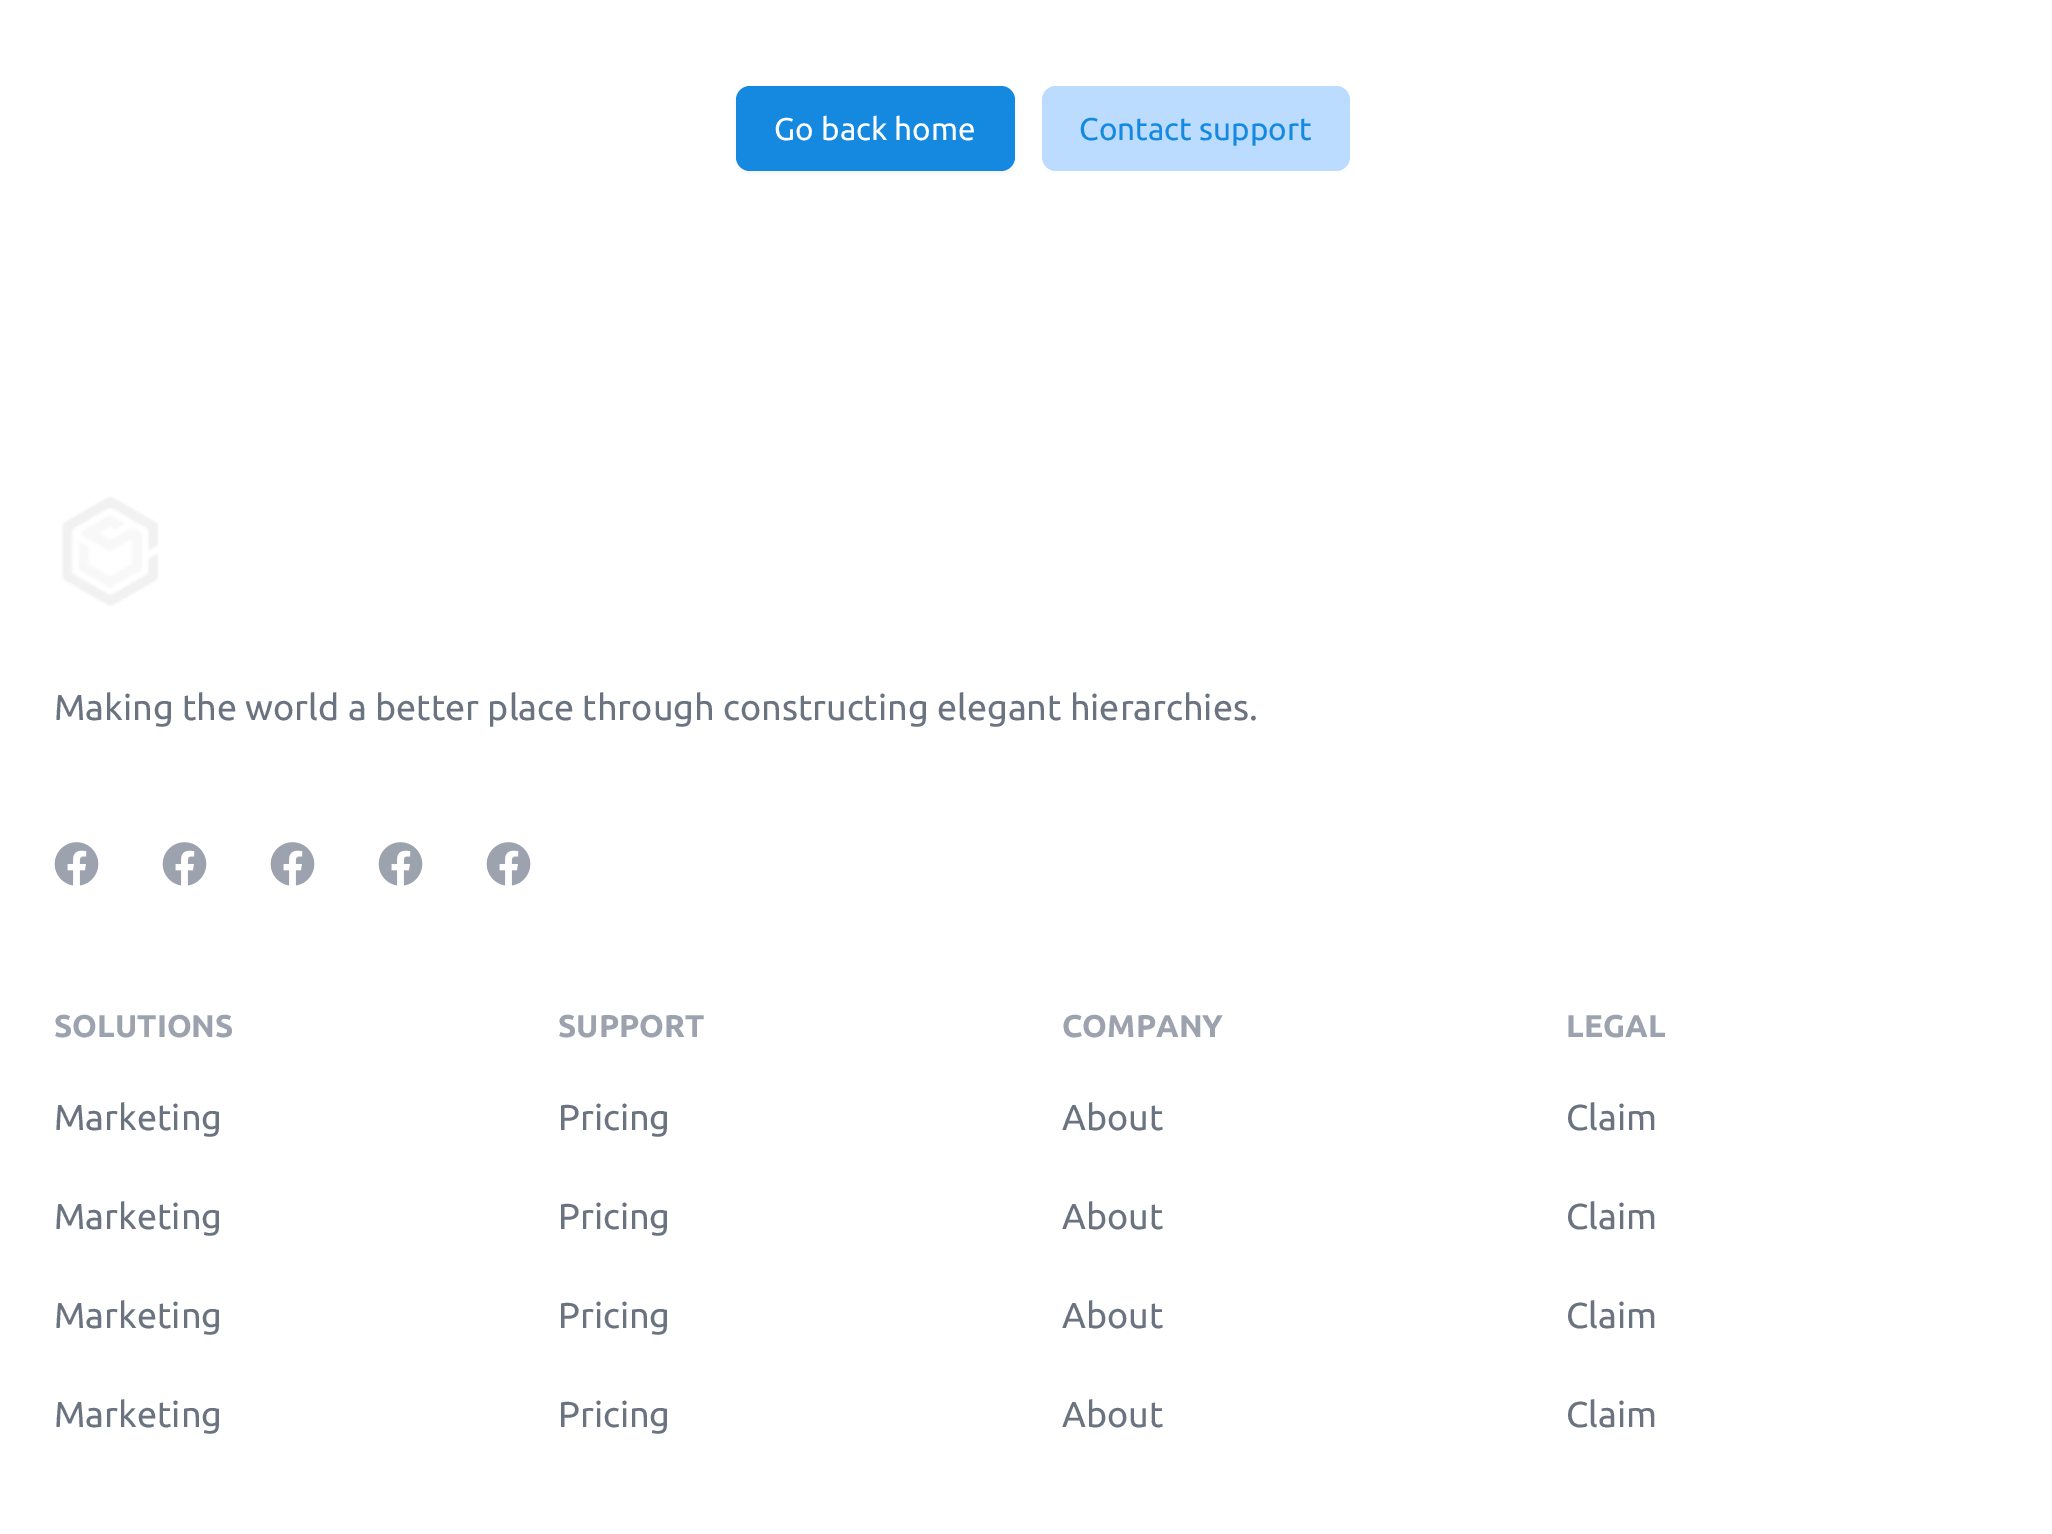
%!PS
<< /PageSize [2052 1534] /PageUsesTransparency true >> setpagedevice
/alpha { dup .setfillconstantalpha .setstrokeconstantalpha } def
/roundrect { 5 dict begin { /r /h /w /y /x } { exch def } forall
  x r add y moveto x w add y 2 copy h add r arct x w add y h add x 1 index r arct
  x y h add x y r arct x y 2 copy exch w add exch r arct closepath end } def
/shadow { 12 dict begin { /a /b /q /h /w /y /x } { exch def } forall gsave /was 0 def
  9 -2 -9 { dup b mul 4 div /e exch def 1 sub .425 mul 2.718 exch exp 1 add a .99 .min exch div /now exch def
    1 1 now sub 1 was sub div sub alpha /was now def
    w h .min e 2 mul add 0 gt { x e sub y e sub w e 2 mul add h e 2 mul add
      q e add b .6 mul add w h .min 2 div e add .min 0 .max roundrect fill } if } for grestore end } def
/picture { 5 dict begin { /h /w /y /x /name } { exch def } forall
  gsave x y translate w h scale
  w h 8 [w 0 0 h 0 0] name (r) file false 3 colorimage grestore end } def
0 .pushpdf14devicefilter
0 1534 translate 1 -1 scale
4 setmiterlimit
1 setgray
0 0 2052 1534 rectfill
0 setgray
736 88 279 85 14 2 0.05 shadow
0.078 0.537 0.875 setrgbcolor
736 86 279 85 14 roundrect fill
/Ubuntu-Regular [31.5 0 0 -31.5 0 0] selectfont
1 setgray
774 140 moveto (Go back home) show
0.737 0.863 1 setrgbcolor
1042 86 308 85 14 roundrect fill
0.078 0.537 0.875 setrgbcolor
1079 140 moveto (Contact support) show
(img1.rgb) 61 496 98 110 picture
/Ubuntu-Regular [36 0 0 -36 0 0] selectfont
0.42 0.447 0.502 setrgbcolor
54 720 moveto (Making the world a better place through constructing elegant hierarchies.) show
(img2.rgb) 54 842 45 44 picture
(img2.rgb) 162 842 45 44 picture
(img2.rgb) 270 842 45 44 picture
(img2.rgb) 378 842 45 44 picture
(img2.rgb) 486 842 45 44 picture
/Ubuntu-Bold [31.5 0 0 -31.5 0 0] selectfont
0.612 0.639 0.686 setrgbcolor
54 1037 moveto (SOLUTIONS) show
/Ubuntu-Regular [36 0 0 -36 0 0] selectfont
0.42 0.447 0.502 setrgbcolor
54 1130 moveto (Marketing) show
54 1229 moveto (Marketing) show
54 1328 moveto (Marketing) show
54 1427 moveto (Marketing) show
/Ubuntu-Bold [31.5 0 0 -31.5 0 0] selectfont
0.612 0.639 0.686 setrgbcolor
558 1037 moveto (SUPPORT) show
/Ubuntu-Regular [36 0 0 -36 0 0] selectfont
0.42 0.447 0.502 setrgbcolor
558 1130 moveto (Pricing) show
558 1229 moveto (Pricing) show
558 1328 moveto (Pricing) show
558 1427 moveto (Pricing) show
/Ubuntu-Bold [31.5 0 0 -31.5 0 0] selectfont
0.612 0.639 0.686 setrgbcolor
1062 1037 moveto (COMPANY) show
/Ubuntu-Regular [36 0 0 -36 0 0] selectfont
0.42 0.447 0.502 setrgbcolor
1062 1130 moveto (About) show
1062 1229 moveto (About) show
1062 1328 moveto (About) show
1062 1427 moveto (About) show
/Ubuntu-Bold [31.5 0 0 -31.5 0 0] selectfont
0.612 0.639 0.686 setrgbcolor
1566 1037 moveto (LEGAL) show
/Ubuntu-Regular [36 0 0 -36 0 0] selectfont
0.42 0.447 0.502 setrgbcolor
1566 1130 moveto (Claim) show
1566 1229 moveto (Claim) show
1566 1328 moveto (Claim) show
1566 1427 moveto (Claim) show
.poppdf14devicefilter showpage
